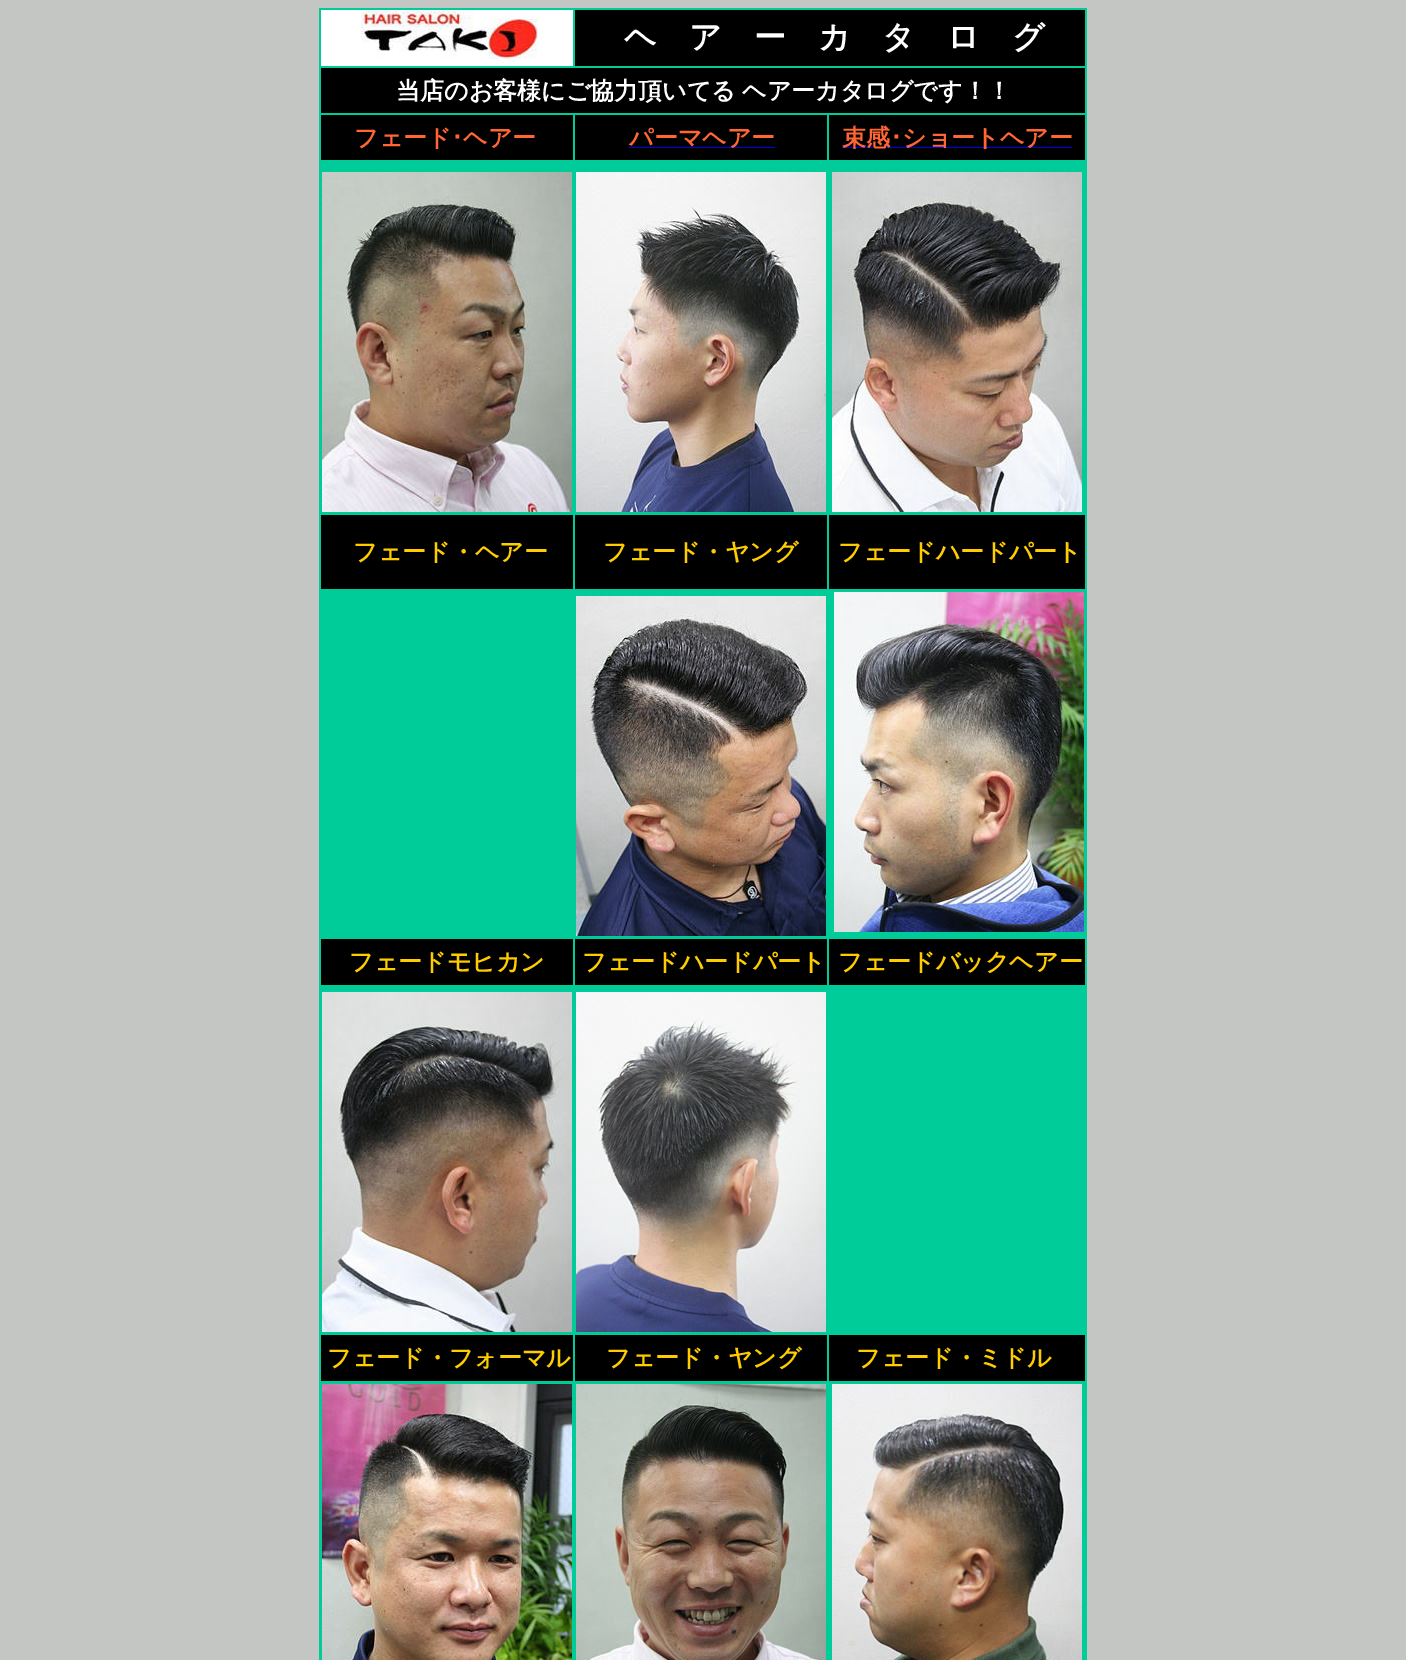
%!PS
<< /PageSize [1406 1660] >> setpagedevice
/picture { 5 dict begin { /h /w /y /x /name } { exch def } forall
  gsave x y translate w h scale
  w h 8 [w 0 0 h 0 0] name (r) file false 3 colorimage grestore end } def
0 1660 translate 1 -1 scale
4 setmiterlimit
0.769 0.776 0.765 setrgbcolor
0 0 1406 1660 rectfill
0 0.8 0.6 setrgbcolor
319 8 768 1652 rectfill
1 setgray
321 10 252 56 rectfill
(img1.rgb) 361 11 177 48 picture
0 setgray
575 10 510 56 rectfill
/WenQuanYiZenHei-Bold [32 0 0 -32 0 0] selectfont
1 setgray
624 48 moveto (ヘ　ア　ー　カ　タ　ロ　グ) show
0 setgray
321 68 764 45 rectfill
/WenQuanYiZenHei-Bold [24 0 0 -24 0 0] selectfont
1 setgray
396 99 moveto (当店のお客様にご協力頂いてる) show
742 99 moveto (ヘアーカタログです！！) show
0 setgray
321 115 252 45 rectfill
1 0.4 0.2 setrgbcolor
354 146 moveto (フェード) show
/IPAGothic-Bold [24 0 0 -24 0 0] selectfont
451 146 moveto (･) show
/WenQuanYiZenHei-Bold [24 0 0 -24 0 0] selectfont
463 146 moveto (ヘアー) show
0 setgray
575 115 252 45 rectfill
0 0 0.933 setrgbcolor
629 147 146 1 rectfill
1 0.4 0.2 setrgbcolor
629 146 moveto (パーマヘアー) show
0 setgray
829 115 256 45 rectfill
0 0 0.933 setrgbcolor
842 147 230 1 rectfill
1 0.4 0.2 setrgbcolor
842 146 moveto (束感) show
/IPAGothic-Bold [24 0 0 -24 0 0] selectfont
890 146 moveto (･) show
/WenQuanYiZenHei-Bold [24 0 0 -24 0 0] selectfont
902 146 moveto (ショートヘアー) show
(img2.rgb) 322 172 250 340 picture
(img3.rgb) 576 172 250 340 picture
(img4.rgb) 832 172 250 340 picture
0 setgray
321 515 252 74 rectfill
1 0.8 0 setrgbcolor
353 560 moveto (フェード・ヘアー) show
0 setgray
575 515 252 74 rectfill
1 0.8 0 setrgbcolor
603 560 moveto (フェード・ヤング) show
0 setgray
829 515 256 74 rectfill
1 0.8 0 setrgbcolor
838 560 moveto (フェードハードパート) show
(img5.rgb) 576 596 250 340 picture
(img6.rgb) 834 592 250 340 picture
0 setgray
321 939 252 46 rectfill
1 0.8 0 setrgbcolor
349 970 moveto (フェードモヒカン) show
0 setgray
575 939 252 46 rectfill
1 0.8 0 setrgbcolor
582 970 moveto (フェードハードパート) show
0 setgray
829 939 256 46 rectfill
1 0.8 0 setrgbcolor
838 970 moveto (フェードバックヘアー) show
(img7.rgb) 322 992 250 340 picture
(img8.rgb) 576 992 250 340 picture
0 setgray
321 1335 252 46 rectfill
1 0.8 0 setrgbcolor
327 1366 moveto (フェード・フォーマル) show
0 setgray
575 1335 252 46 rectfill
1 0.8 0 setrgbcolor
606 1366 moveto (フェード・ヤング) show
0 setgray
829 1335 256 46 rectfill
1 0.8 0 setrgbcolor
856 1366 moveto (フェード・ミドル) show
(img9.rgb) 322 1384 250 276 picture
(img10.rgb) 576 1384 250 276 picture
(img11.rgb) 832 1384 250 276 picture
showpage
